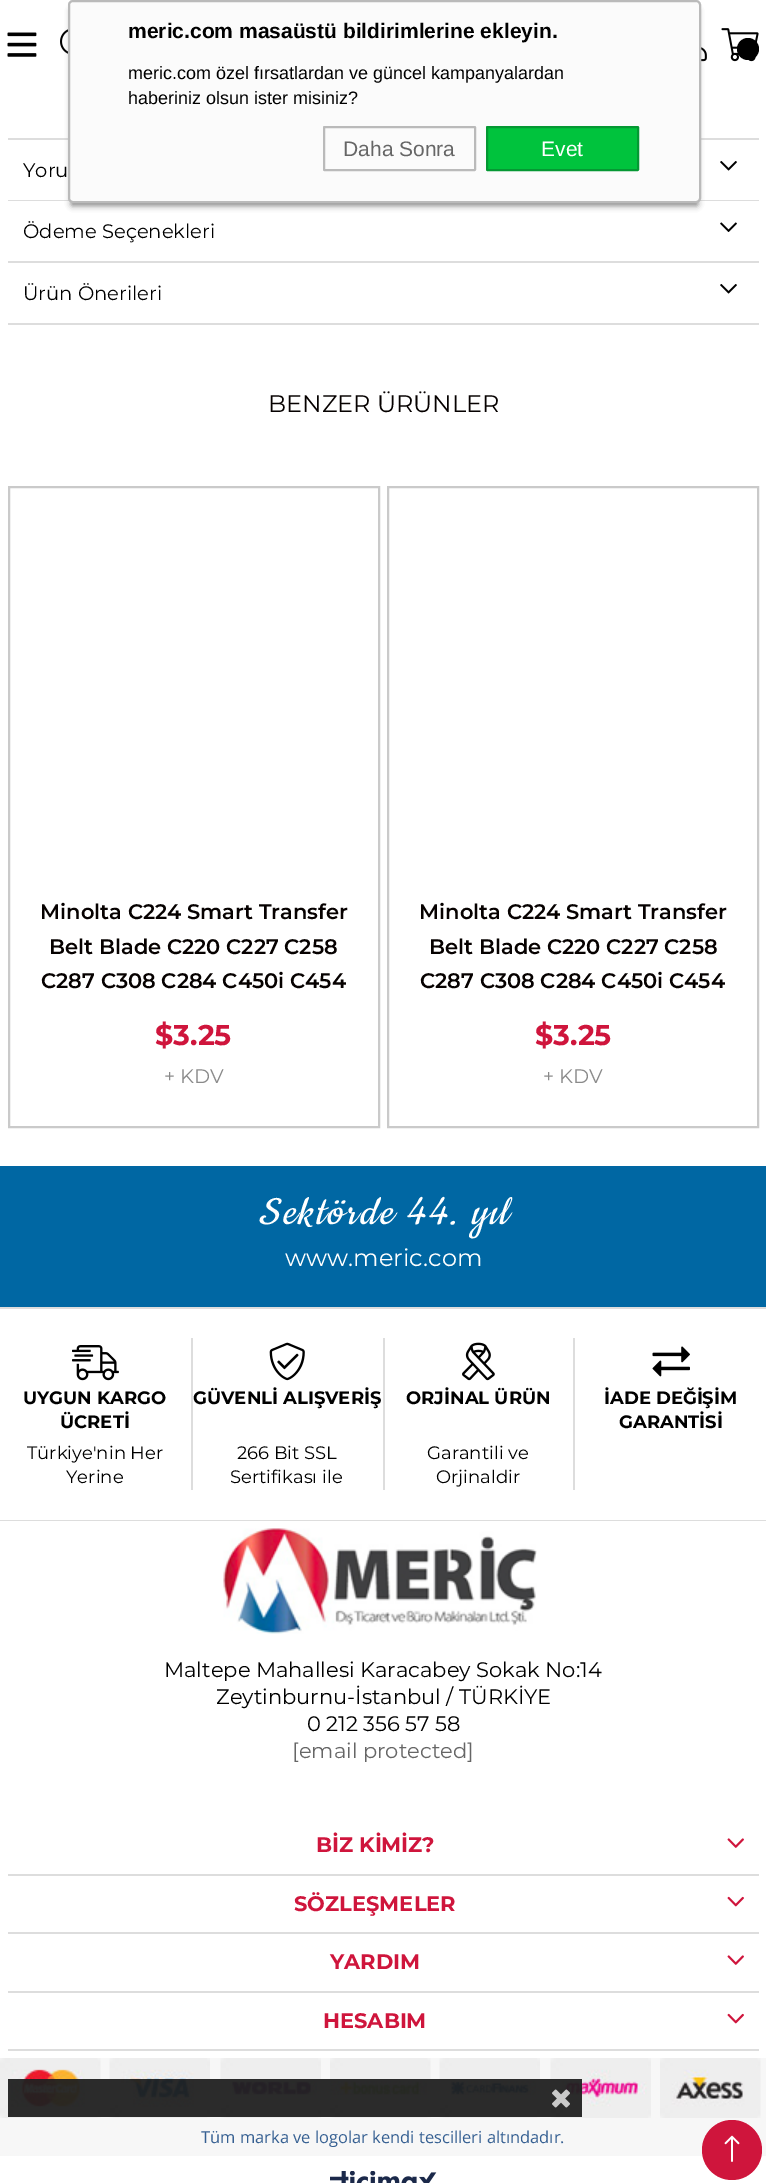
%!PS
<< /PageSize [766 2183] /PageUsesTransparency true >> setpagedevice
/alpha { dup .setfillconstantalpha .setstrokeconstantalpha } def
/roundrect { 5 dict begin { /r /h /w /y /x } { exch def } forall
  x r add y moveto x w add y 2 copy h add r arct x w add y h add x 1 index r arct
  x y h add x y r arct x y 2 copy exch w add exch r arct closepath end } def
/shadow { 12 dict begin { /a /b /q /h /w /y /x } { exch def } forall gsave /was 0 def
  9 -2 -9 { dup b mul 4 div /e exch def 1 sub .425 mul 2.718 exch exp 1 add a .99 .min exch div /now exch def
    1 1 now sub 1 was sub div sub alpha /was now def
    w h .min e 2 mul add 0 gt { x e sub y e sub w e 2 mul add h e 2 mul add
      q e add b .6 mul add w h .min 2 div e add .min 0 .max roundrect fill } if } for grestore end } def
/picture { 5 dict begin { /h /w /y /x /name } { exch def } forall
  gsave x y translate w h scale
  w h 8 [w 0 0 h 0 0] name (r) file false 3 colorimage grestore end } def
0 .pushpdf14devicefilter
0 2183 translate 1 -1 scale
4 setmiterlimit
1 setgray
0 0 766 2183 rectfill
(img2.rgb) 60 29 8 25 picture
(img4.rgb) 701 47 6 15 picture
0.867 setgray
8 138 751 2 rectfill
8 200 751 1 rectfill
0.533 setgray
71 9 627 197 1.5 3 1 shadow
0.984 setgray
69 1 631 201 4 roundrect gsave fill grestore
0.729 setgray
2 setlinewidth
stroke
/LiberationSans-Bold [21 0 0 -21 0 0] selectfont
0 setgray
128 38 moveto (meric.com masaüstü bildirimlerine ekleyin.) show
/LiberationSans-Regular [18 0 0 -18 0 0] selectfont
128 79 moveto (meric.com özel fırsatlardan ve güncel kampanyalardan) show
128 104 moveto (haberiniz olsun ister misiniz?) show
0.729 setgray
324 127 151 43 0.5 roundrect stroke
/LiberationSans-Regular [21 0 0 -21 0 0] selectfont
0.4 setgray
343 156 moveto (Daha Sonra) show
0 0.765 0.239 setrgbcolor
487 127 151 43 0.5 roundrect gsave fill grestore
0.02 0.596 0.2 setrgbcolor
stroke
1 setgray
541 156 moveto (Evet) show
(img1.rgb) 7 32 30 25 picture
(img3.rgb) 721 28 38 34 picture
0 setgray
newpath 748 49 11 0 360 arc closepath fill
/Montserrat-Regular [19.5 0 0 -19.5 0 0] selectfont
23 177 moveto (Yoru) show
(img5.rgb) 720 161 17 10 picture
0.867 setgray
8 261 751 2 rectfill
0 setgray
23 238 moveto (Ödeme Seçenekleri) show
(img6.rgb) 720 222 17 10 picture
0.867 setgray
8 323 751 2 rectfill
0 setgray
23 300 moveto (Ürün Önerileri) show
(img5.rgb) 720 284 17 10 picture
/Montserrat-Regular [24 0 0 -24 0 0] selectfont
0.024 0.004 0 setrgbcolor
268 412 moveto (BENZER ÜRÜNLER) show
0.792 setgray
9 487 370 640 rectstroke
/Montserrat-SemiBold [21 0 0 -21 0 0] selectfont
0.024 0.004 0 setrgbcolor
40 919 moveto (Minolta C224 Smart Transfer) show
49 954 moveto (Belt Blade C220 C227 C258) show
41 988 moveto (C287 C308 C284 C450i C454) show
/Montserrat-Bold [28.5 0 0 -28.5 0 0] selectfont
0.812 0.082 0.235 setrgbcolor
155 1045 moveto ($3.25) show
/Montserrat-Regular [19.5 0 0 -19.5 0 0] selectfont
0.541 setgray
164 1083 moveto (+ KDV) show
0.792 setgray
388 487 370 640 rectstroke
/Montserrat-SemiBold [21 0 0 -21 0 0] selectfont
0.024 0.004 0 setrgbcolor
419 919 moveto (Minolta C224 Smart Transfer) show
429 954 moveto (Belt Blade C220 C227 C258) show
420 988 moveto (C287 C308 C284 C450i C454) show
/Montserrat-Bold [28.5 0 0 -28.5 0 0] selectfont
0.812 0.082 0.235 setrgbcolor
535 1045 moveto ($3.25) show
/Montserrat-Regular [19.5 0 0 -19.5 0 0] selectfont
0.541 setgray
543 1083 moveto (+ KDV) show
0 0.404 0.639 setrgbcolor
0 1166 766 141 rectfill
/Cookie-Italic [45 0 0 -45 0 0] selectfont
1 setgray
258 1224 moveto 2.25 0 (Sektörde 44. yıl) ashow
/Montserrat-Regular [24 0 0 -24 0 0] selectfont
285 1266 moveto (www.meric.com) show
0.867 setgray
0 1307 766 2 rectfill
0 1520 766 1 rectfill
191 1338 2 152 rectfill
(img7.rgb) 72 1345 47 36 picture
/Montserrat-Bold [18 0 0 -18 0 0] selectfont
0 setgray
23 1404 moveto (UYGUN KARGO) show
60 1428 moveto (ÜCRETİ) show
/Montserrat-Regular [18 0 0 -18 0 0] selectfont
27 1459 moveto (Türkiye'nin Her) show
66 1483 moveto (Yerine) show
0.867 setgray
383 1338 2 152 rectfill
(img8.rgb) 269 1342 36 39 picture
/Montserrat-Bold [18 0 0 -18 0 0] selectfont
0 setgray
193 1404 moveto (GÜVENLİ ALIŞVERİŞ) show
/Montserrat-Regular [18 0 0 -18 0 0] selectfont
237 1459 moveto (266 Bit SSL) show
230 1483 moveto (Sertifikası ile) show
0.867 setgray
573 1338 2 152 rectfill
(img9.rgb) 462 1342 33 39 picture
/Montserrat-Bold [18 0 0 -18 0 0] selectfont
0 setgray
406 1404 moveto (ORJİNAL ÜRÜN) show
/Montserrat-Regular [18 0 0 -18 0 0] selectfont
427 1459 moveto (Garantili ve) show
436 1483 moveto (Orjinaldir) show
(img10.rgb) 652 1346 38 31 picture
/Montserrat-Bold [18 0 0 -18 0 0] selectfont
604 1404 moveto (İADE DEĞİŞİM) show
619 1428 moveto (GARANTİSİ) show
(img11.rgb) 223 1528 314 106 picture
/Montserrat-Regular [21 0 0 -21 0 0] selectfont
164 1677 moveto (Maltepe Mahallesi Karacabey Sokak No:14) show
216 1704 moveto (Zeytinburnu-İstanbul / TÜRKİYE) show
307 1731 moveto (0 212 356 57 58) show
0.4 setgray
292 1758 moveto ([email protected]) show
0.867 setgray
8 1874 751 2 rectfill
/Montserrat-Bold [21 0 0 -21 0 0] selectfont
0.812 0.082 0.235 setrgbcolor
316 1852 moveto (BİZ KİMİZ?) show
(img12.rgb) 727 1838 17 10 picture
0.867 setgray
8 1932 751 2 rectfill
0.812 0.082 0.235 setrgbcolor
294 1911 moveto (SÖZLEŞMELER) show
(img13.rgb) 727 1896 17 11 picture
0.867 setgray
8 1991 751 2 rectfill
0.812 0.082 0.235 setrgbcolor
330 1969 moveto (YARDIM) show
(img12.rgb) 727 1955 17 10 picture
0.867 setgray
8 2049 751 2 rectfill
0.812 0.082 0.235 setrgbcolor
323 2028 moveto (HESABIM) show
(img13.rgb) 727 2013 17 11 picture
0.969 setgray
0 2058 766 98 rectfill
(img14.rgb) 0 2058 101 60 picture
(img15.rgb) 109 2058 101 60 picture
(img16.rgb) 220 2058 101 60 picture
(img17.rgb) 330 2058 101 60 picture
(img18.rgb) 439 2058 101 60 picture
(img19.rgb) 550 2058 101 60 picture
(img20.rgb) 660 2058 101 60 picture
/OpenSans-Regular [16.5 0 0 -16.5 0 0] selectfont
0.212 0.376 0.573 setrgbcolor
201 2143 moveto (Tüm marka ve logolar kendi tescilleri altındadır.) show
(img21.rgb) 330 2171 107 12 picture
0.95 alpha
0.125 setgray
8 2079 574 38 rectfill
1 alpha
(img22.rgb) 552 2089 18 19 picture
0.812 0.082 0.235 setrgbcolor
newpath 732 2150 30 0 360 arc closepath fill
(img23.rgb) 724 2135 16 27 picture
.poppdf14devicefilter showpage
